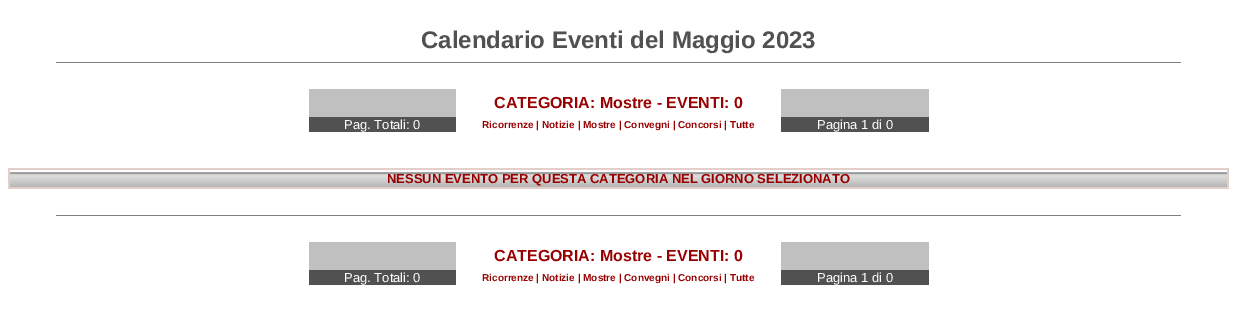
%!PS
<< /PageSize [1237 327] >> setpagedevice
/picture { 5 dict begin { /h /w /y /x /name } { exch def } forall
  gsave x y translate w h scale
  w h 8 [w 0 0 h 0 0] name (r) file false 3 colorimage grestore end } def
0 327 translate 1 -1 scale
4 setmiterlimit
1 setgray
0 0 1237 327 rectfill
/LiberationSans-Bold [24 0 0 -24 0 0] selectfont
0.318 setgray
421 48 moveto (Calendario Eventi del Maggio 2023) show
0.502 setgray
56 62 1125 1 rectfill
0.753 setgray
309 89 147 28 rectfill
/LiberationSans-Bold [16 0 0 -16 0 0] selectfont
0.6 0 0 setrgbcolor
494 108 moveto (CATEGORIA: Mostre - EVENTI: 0) show
0.753 setgray
781 89 148 28 rectfill
0.318 setgray
309 117 147 15 rectfill
/LiberationSans-Regular [13 0 0 -13 0 0] selectfont
1 setgray
344 129 moveto (Pag. Totali: 0) show
/LiberationSans-Bold [10 0 0 -10 0 0] selectfont
0.6 0 0 setrgbcolor
482 128 moveto (Ricorrenze | Notizie | Mostre | Convegni | Concorsi | Tutte) show
0.318 setgray
781 117 148 15 rectfill
/LiberationSans-Regular [13 0 0 -13 0 0] selectfont
1 setgray
817 129 moveto (Pagina 1 di 0) show
0.894 0.808 0.788 setrgbcolor
8 168 1221 21 rectfill
(img1.rgb) 10 170 1217 17 picture
/LiberationSans-Bold [13 0 0 -13 0 0] selectfont
0.6 0 0 setrgbcolor
387 183 moveto (NESSUN EVENTO PER QUESTA CATEGORIA NEL GIORNO SELEZIONATO) show
0.502 setgray
56 215 1125 1 rectfill
0.753 setgray
309 242 147 28 rectfill
/LiberationSans-Bold [16 0 0 -16 0 0] selectfont
0.6 0 0 setrgbcolor
494 261 moveto (CATEGORIA: Mostre - EVENTI: 0) show
0.753 setgray
781 242 148 28 rectfill
0.318 setgray
309 270 147 15 rectfill
/LiberationSans-Regular [13 0 0 -13 0 0] selectfont
1 setgray
344 282 moveto (Pag. Totali: 0) show
/LiberationSans-Bold [10 0 0 -10 0 0] selectfont
0.6 0 0 setrgbcolor
482 281 moveto (Ricorrenze | Notizie | Mostre | Convegni | Concorsi | Tutte) show
0.318 setgray
781 270 148 15 rectfill
/LiberationSans-Regular [13 0 0 -13 0 0] selectfont
1 setgray
817 282 moveto (Pagina 1 di 0) show
showpage
